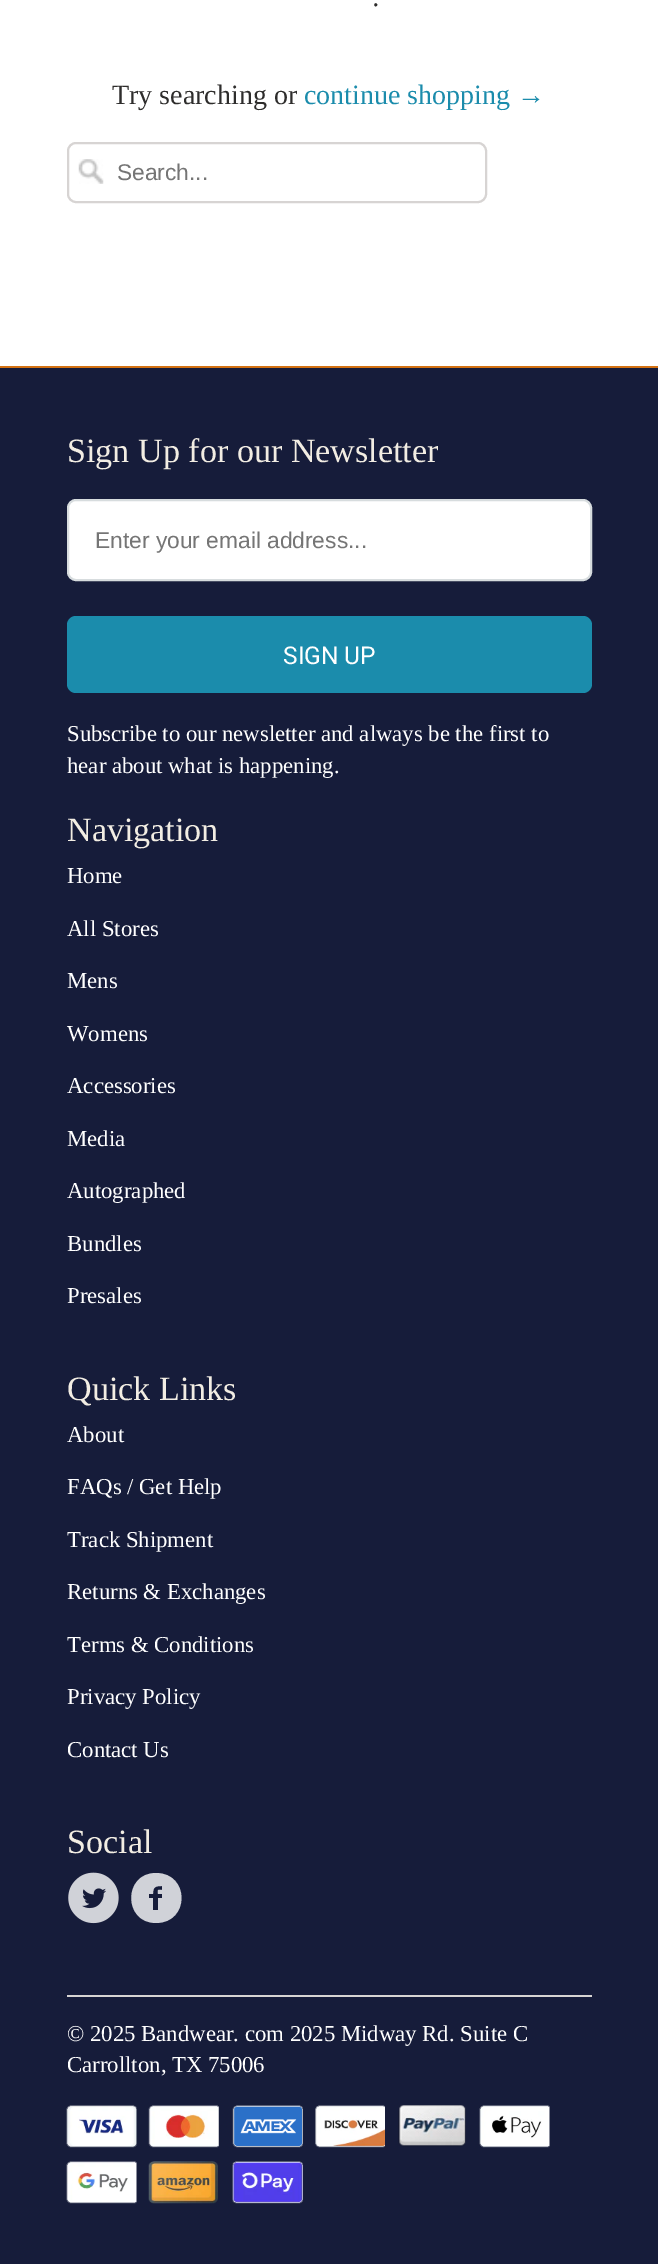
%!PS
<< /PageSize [658 2264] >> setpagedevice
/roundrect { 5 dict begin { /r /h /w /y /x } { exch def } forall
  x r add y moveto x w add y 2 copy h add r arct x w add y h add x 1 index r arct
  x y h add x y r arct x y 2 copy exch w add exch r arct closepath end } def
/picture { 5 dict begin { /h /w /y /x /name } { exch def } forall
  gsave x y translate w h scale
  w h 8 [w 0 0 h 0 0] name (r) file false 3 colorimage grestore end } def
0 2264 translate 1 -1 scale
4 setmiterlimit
1 setgray
0 0 658 2264 rectfill
/LiberationSerif-Italic [28 0 0 -28 0 0] selectfont
0.18 0.176 0.173 setrgbcolor
373 6 moveto (.) show
/LiberationSerif-Regular [28 0 0 -28 0 0] selectfont
112 104 moveto (Try searching or) show
0.106 0.549 0.675 setrgbcolor
304 104 moveto (continue shopping →) show
(img1.rgb) 78 159 26 25 picture
0.843 0.831 0.827 setrgbcolor
2 setlinewidth
68 143 418 59 8 roundrect stroke
/LiberationSans-Regular [22.75 0 0 -22.75 0 0] selectfont
0.459 setgray
117 180 moveto (Search...) show
0.086 0.11 0.227 setrgbcolor
0 368 658 1896 rectfill
0.827 0.443 0.071 setrgbcolor
0 366 658 2 rectfill
/LiberationSerif-Regular [34.1 0 0 -34.1 0 0] selectfont
0.949 0.929 0.89 setrgbcolor
67 462 moveto (Sign Up for our Newsletter) show
1 setgray
68 500 523 80 8 roundrect gsave fill grestore
0.843 0.863 0.871 setrgbcolor
stroke
/LiberationSans-Regular [22.75 0 0 -22.75 0 0] selectfont
0.459 setgray
95 548 moveto (Enter your email address...) show
0.106 0.549 0.675 setrgbcolor
67 616 525 77 9 roundrect fill
/Roboto-Regular [24.5 0 0 -24.5 0 0] selectfont
1 setgray
283 664 moveto (SIGN UP) show
/LiberationSerif-Regular [22.75 0 0 -22.75 0 0] selectfont
67 741 moveto (Subscribe to our newsletter and always be the first to) show
67 773 moveto (hear about what is happening.) show
/LiberationSerif-Regular [34.1 0 0 -34.1 0 0] selectfont
0.949 0.929 0.89 setrgbcolor
67 841 moveto (Navigation) show
/LiberationSerif-Regular [22.75 0 0 -22.75 0 0] selectfont
1 setgray
67 883 moveto (Home) show
67 936 moveto (All Stores) show
67 988 moveto (Mens) show
67 1041 moveto (Womens) show
67 1093 moveto (Accessories) show
67 1146 moveto (Media) show
67 1198 moveto (Autographed) show
67 1251 moveto (Bundles) show
67 1303 moveto (Presales) show
/LiberationSerif-Regular [34.1 0 0 -34.1 0 0] selectfont
0.949 0.929 0.89 setrgbcolor
67 1400 moveto (Quick Links) show
/LiberationSerif-Regular [22.75 0 0 -22.75 0 0] selectfont
1 setgray
67 1442 moveto (About) show
67 1494 moveto (FAQs / Get Help) show
67 1547 moveto (Track Shipment) show
67 1599 moveto (Returns & Exchanges) show
67 1652 moveto (Terms & Conditions) show
67 1704 moveto (Privacy Policy) show
67 1757 moveto (Contact Us) show
/LiberationSerif-Regular [34.1 0 0 -34.1 0 0] selectfont
0.949 0.929 0.89 setrgbcolor
67 1853 moveto (Social) show
(img2.rgb) 68 1872 51 52 picture
0.816 0.824 0.847 setrgbcolor
newpath 156 1873 moveto 190 1873 190 1923 156 1923 curveto 123 1923 123 1873 156 1873 curveto closepath 162 1890 moveto 162 1886 lineto 155 1886 153 1887 153 1894 curveto 149 1894 lineto 149 1898 lineto 153 1898 lineto 153 1910 lineto 158 1910 lineto 158 1898 lineto 162 1898 lineto 162 1894 lineto 158 1894 lineto 158 1889 157 1890 162 1890 curveto closepath fill
0.843 0.831 0.827 setrgbcolor
67 1995 525 2 rectfill
/LiberationSerif-Regular [22.75 0 0 -22.75 0 0] selectfont
1 setgray
67 2041 moveto (© 2025 Bandwear. com 2025 Midway Rd. Suite C) show
67 2072 moveto (Carrollton, TX 75006) show
(img3.rgb) 66 2105 71 43 picture
(img4.rgb) 148 2105 71 43 picture
(img5.rgb) 232 2105 71 43 picture
(img6.rgb) 315 2105 70 43 picture
(img7.rgb) 398 2105 68 42 picture
(img8.rgb) 479 2105 71 43 picture
(img9.rgb) 66 2161 71 43 picture
(img10.rgb) 148 2161 70 43 picture
(img11.rgb) 232 2161 71 43 picture
showpage
